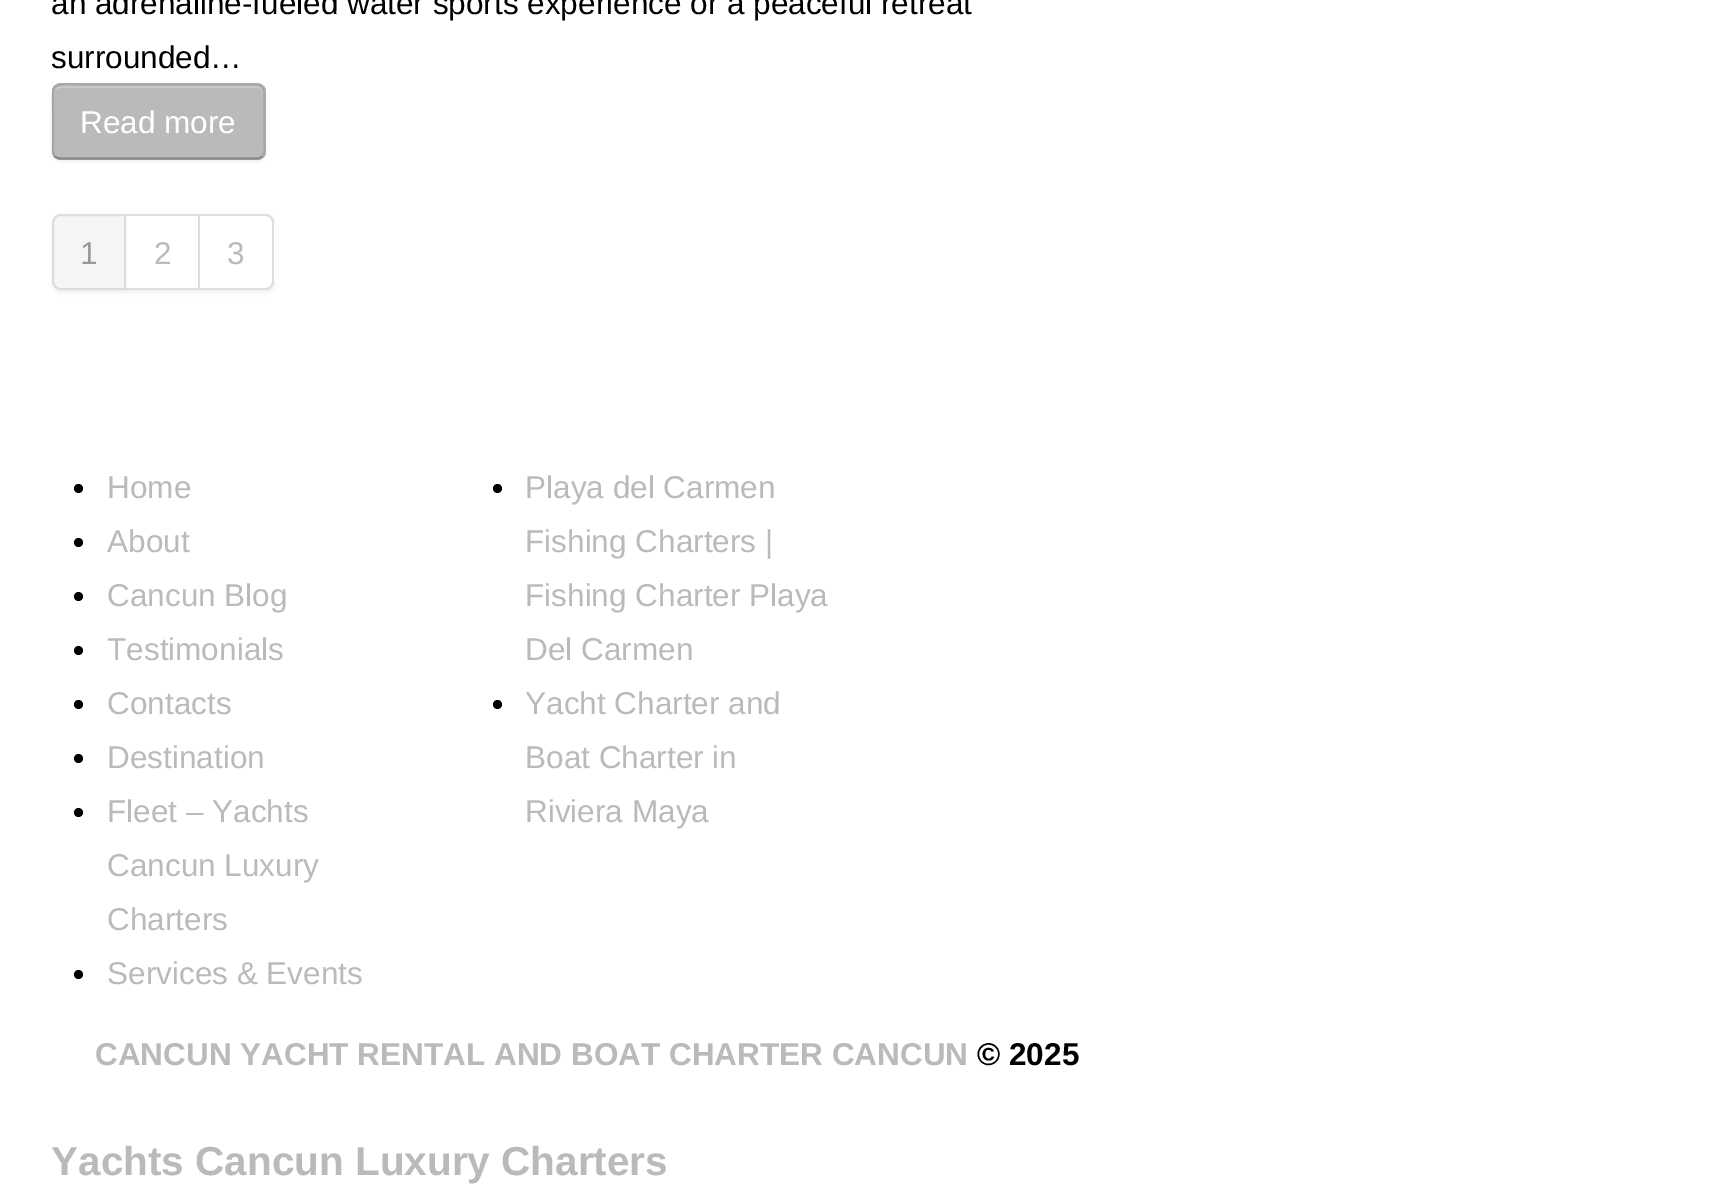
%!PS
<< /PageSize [1729 1201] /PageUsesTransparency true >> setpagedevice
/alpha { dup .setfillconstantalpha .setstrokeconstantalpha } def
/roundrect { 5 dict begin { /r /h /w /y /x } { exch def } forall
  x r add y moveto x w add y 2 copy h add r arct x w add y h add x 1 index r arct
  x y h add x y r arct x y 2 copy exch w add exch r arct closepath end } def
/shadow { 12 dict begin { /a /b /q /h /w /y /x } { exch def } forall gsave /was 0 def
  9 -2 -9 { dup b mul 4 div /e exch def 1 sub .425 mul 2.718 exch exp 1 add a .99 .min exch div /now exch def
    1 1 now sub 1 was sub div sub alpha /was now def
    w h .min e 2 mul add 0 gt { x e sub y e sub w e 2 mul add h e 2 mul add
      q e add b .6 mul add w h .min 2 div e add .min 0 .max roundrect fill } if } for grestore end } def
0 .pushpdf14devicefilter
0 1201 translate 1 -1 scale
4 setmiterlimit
1 setgray
0 0 1729 1201 rectfill
/LiberationSans-Regular [31.5 0 0 -31.5 0 0] selectfont
0 setgray
51 14 moveto (an adrenaline-fueled water sports experience or a peaceful retreat) show
51 68 moveto (surrounded…) show
52 86 214 76 9 2 0.05 shadow
0.733 0.729 0.729 setrgbcolor
52 83 214 77 9 roundrect fill
gsave
52 83 214 77 9 roundrect clip newpath
52 86 214 72 rectfill
grestore
0.788 0.784 0.784 setrgbcolor
newpath 61 88 moveto 256 88 lineto 260 88 263 91 263 94 curveto 263 93 lineto 263 89 260 86 256 86 curveto 61 86 lineto 57 86 54 89 54 93 curveto 54 94 lineto 54 91 57 88 61 88 curveto closepath fill
0.25 alpha
0 setgray
2.2 setlinewidth
newpath 262 156.5 moveto 260.5 158 258.5 158.5 256.5 158.5 curveto 61 158.5 lineto 58.5 158.5 56.5 158 55 156.5 curveto stroke
0.1 alpha
newpath 55 156.5 moveto 51.5 152.5 53 145.5 53 141 curveto 53 121.5 lineto 53 77 46.5 84.5 93.5 84.5 curveto 256.5 84.5 lineto 266 84.5 264.5 96 264.5 102 curveto 264.5 141 lineto 264.5 145.5 266 152.5 262 156.5 curveto stroke
1 alpha
1 setgray
80 133 moveto (Read more) show
gsave
newpath 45 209 moveto 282 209 lineto 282 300 lineto 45 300 lineto closepath 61 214 moveto 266 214 lineto 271 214 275 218 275 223 curveto 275 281 lineto 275 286 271 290 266 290 curveto 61 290 lineto 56 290 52 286 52 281 curveto 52 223 lineto 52 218 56 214 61 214 curveto closepath eoclip newpath
0 setgray
52 216 223 77 9 2 0.05 shadow
grestore
0.961 setgray
newpath 61 215 moveto 125 215 lineto 125 289 lineto 61 289 lineto 56.5 289 53 285.5 53 281 curveto 53 223 lineto 53 218.5 56.5 215 61 215 curveto closepath gsave fill grestore
0.867 setgray
2 setlinewidth
stroke
0.6 setgray
80 264 moveto (1) show
0.867 setgray
126 214 74 2 rectfill
198 214 2 76 rectfill
126 288 74 2 rectfill
0.733 0.729 0.729 setrgbcolor
154 264 moveto (2) show
0.867 setgray
newpath 200 214 moveto 266 214 lineto 270 214 274 218 274 223 curveto 274 281 lineto 274 286 270 290 266 290 curveto 200 290 lineto closepath 200 216 moveto 266 216 lineto 269 216 272 219 272 223 curveto 272 281 lineto 272 285 269 288 266 288 curveto 200 288 lineto closepath eofill
0.733 0.729 0.729 setrgbcolor
227 264 moveto (3) show
0 setgray
newpath 78.5 488.5 4.5 0 360 arc closepath fill
0.733 0.729 0.729 setrgbcolor
107 498 moveto (Home) show
0 setgray
newpath 78.5 542.5 4.5 0 360 arc closepath fill
0.733 0.729 0.729 setrgbcolor
107 552 moveto (About) show
0 setgray
newpath 78.5 596.5 4.5 0 360 arc closepath fill
0.733 0.729 0.729 setrgbcolor
107 606 moveto (Cancun Blog) show
0 setgray
newpath 78.5 650.5 4.5 0 360 arc closepath fill
0.733 0.729 0.729 setrgbcolor
107 660 moveto (Testimonials) show
0 setgray
newpath 78.5 704.5 4.5 0 360 arc closepath fill
0.733 0.729 0.729 setrgbcolor
107 714 moveto (Contacts) show
0 setgray
newpath 78.5 758.5 4.5 0 360 arc closepath fill
0.733 0.729 0.729 setrgbcolor
107 768 moveto (Destination) show
0 setgray
newpath 78.5 812.5 4.5 0 360 arc closepath fill
0.733 0.729 0.729 setrgbcolor
107 822 moveto (Fleet – Yachts) show
107 876 moveto (Cancun Luxury) show
107 930 moveto (Charters) show
0 setgray
newpath 78.5 974.5 4.5 0 360 arc closepath fill
0.733 0.729 0.729 setrgbcolor
107 984 moveto (Services & Events) show
0 setgray
newpath 497.5 488.5 4.5 0 360 arc closepath fill
0.733 0.729 0.729 setrgbcolor
525 498 moveto (Playa del Carmen) show
525 552 moveto (Fishing Charters |) show
525 606 moveto (Fishing Charter Playa) show
525 660 moveto (Del Carmen) show
0 setgray
newpath 497.5 704.5 4.5 0 360 arc closepath fill
0.733 0.729 0.729 setrgbcolor
525 714 moveto (Yacht Charter and) show
525 768 moveto (Boat Charter in) show
525 822 moveto (Riviera Maya) show
/LiberationSans-Bold [31.5 0 0 -31.5 0 0] selectfont
95 1065 moveto (CANCUN YACHT RENTAL AND BOAT CHARTER CANCUN) show
0 setgray
977 1065 moveto (© 2025) show
/LiberationSans-Bold [40.5 0 0 -40.5 0 0] selectfont
0.733 0.729 0.729 setrgbcolor
51 1175 moveto (Yachts Cancun Luxury Charters) show
.poppdf14devicefilter showpage
